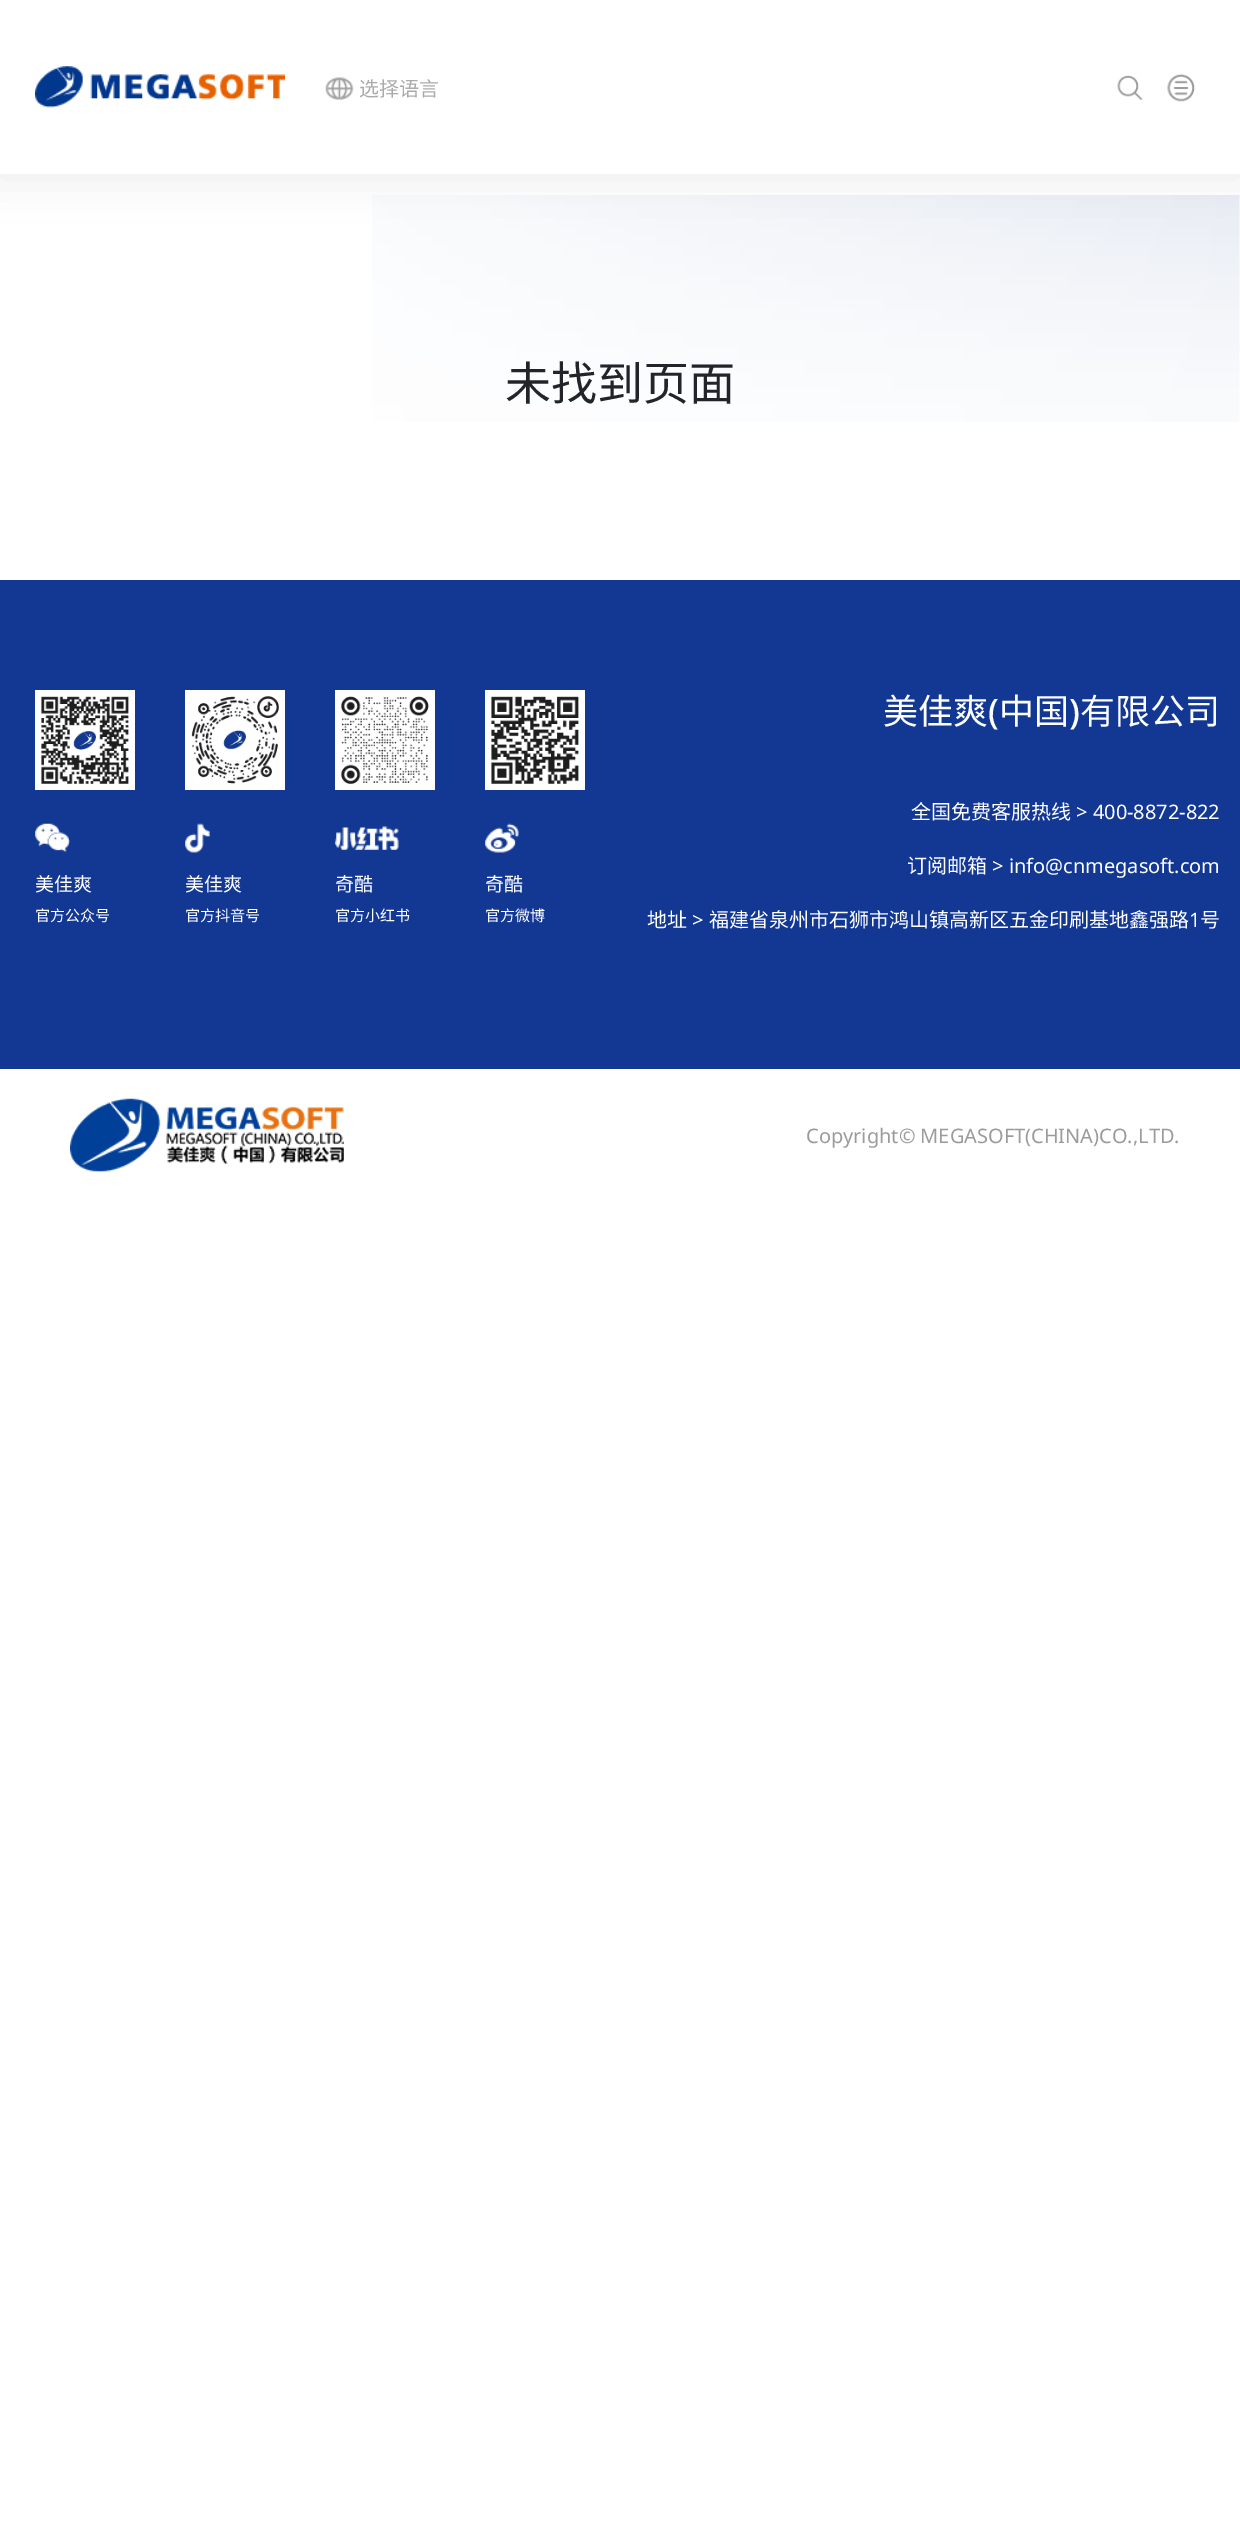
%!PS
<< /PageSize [1240 2527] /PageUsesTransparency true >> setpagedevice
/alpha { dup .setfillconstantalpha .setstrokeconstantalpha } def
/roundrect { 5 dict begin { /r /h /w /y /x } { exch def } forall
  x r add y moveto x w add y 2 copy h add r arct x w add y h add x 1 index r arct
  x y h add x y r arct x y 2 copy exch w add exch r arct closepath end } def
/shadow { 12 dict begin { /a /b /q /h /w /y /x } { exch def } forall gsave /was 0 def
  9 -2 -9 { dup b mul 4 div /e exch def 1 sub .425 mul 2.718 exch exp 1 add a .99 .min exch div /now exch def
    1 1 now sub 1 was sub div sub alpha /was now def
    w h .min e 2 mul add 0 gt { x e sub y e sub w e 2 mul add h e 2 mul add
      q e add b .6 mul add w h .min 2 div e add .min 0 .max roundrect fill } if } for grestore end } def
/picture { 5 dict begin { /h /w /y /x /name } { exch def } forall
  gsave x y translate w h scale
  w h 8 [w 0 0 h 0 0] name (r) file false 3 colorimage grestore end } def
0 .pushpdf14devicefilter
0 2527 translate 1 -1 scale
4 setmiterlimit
1 setgray
0 0 1240 2527 rectfill
gsave
newpath 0 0 moveto 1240 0 lineto 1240 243 lineto 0 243 lineto closepath 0 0 moveto 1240 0 lineto 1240 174 lineto 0 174 lineto closepath eoclip newpath
0.922 setgray
-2 -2 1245 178 0 22 1 shadow
grestore
(img1.rgb) 35 66 250 42 picture
(img2.rgb) 325 77 29 23 picture
/NotoSansCJKSC-Regular [20 0 0 -20 0 0] selectfont
0.667 setgray
359 96 moveto (选择语言) show
(img3.rgb) 1117 75 26 25 picture
(img4.rgb) 1167 73 28 29 picture
(img5.rgb) 372 195 868 227 picture
/NotoSansCJKSC-Regular [46 0 0 -46 0 0] selectfont
0.129 0.145 0.161 setrgbcolor
505 400 moveto (未找到页面) show
0.071 0.22 0.58 setrgbcolor
0 580 1240 489 rectfill
1 setgray
35 690 100 100 rectfill
(img6.rgb) 41 696 88 88 picture
(img7.rgb) 35 823 35 30 picture
/NotoSansCJKSC-Regular [19 0 0 -19 0 0] selectfont
35 891 moveto (美佳爽) show
/NotoSansCJKSC-Regular [15 0 0 -15 0 0] selectfont
35 921 moveto (官方公众号) show
185 690 100 100 rectfill
(img8.rgb) 191 696 88 88 picture
(img9.rgb) 185 823 25 30 picture
/NotoSansCJKSC-Regular [19 0 0 -19 0 0] selectfont
185 891 moveto (美佳爽) show
/NotoSansCJKSC-Regular [15 0 0 -15 0 0] selectfont
185 921 moveto (官方抖音号) show
335 690 100 100 rectfill
(img10.rgb) 341 696 88 88 picture
(img11.rgb) 335 826 64 24 picture
/NotoSansCJKSC-Regular [19 0 0 -19 0 0] selectfont
335 891 moveto (奇酷) show
/NotoSansCJKSC-Regular [15 0 0 -15 0 0] selectfont
335 921 moveto (官方小红书) show
485 690 100 100 rectfill
(img12.rgb) 491 696 88 88 picture
(img13.rgb) 485 823 34 30 picture
/NotoSansCJKSC-Regular [19 0 0 -19 0 0] selectfont
485 891 moveto (奇酷) show
/NotoSansCJKSC-Regular [15 0 0 -15 0 0] selectfont
485 921 moveto (官方微博) show
/NotoSansCJKSC-Regular [35 0 0 -35 0 0] selectfont
883 724 moveto (美佳爽) show
/NotoSans-Medium [35 0 0 -35 0 0] selectfont
988 724 moveto (\() show
/NotoSansCJKSC-Regular [35 0 0 -35 0 0] selectfont
999 724 moveto (中国) show
/NotoSans-Medium [35 0 0 -35 0 0] selectfont
1069 724 moveto (\)) show
/NotoSansCJKSC-Regular [35 0 0 -35 0 0] selectfont
1080 724 moveto (有限公司) show
/NotoSansCJKSC-Regular [20 0 0 -20 0 0] selectfont
911 819 moveto (全国免费客服热线) show
/NotoSans-Regular [20 0 0 -20 0 0] selectfont
1076 819 moveto (> 400-8872-822) show
/NotoSansCJKSC-Regular [20 0 0 -20 0 0] selectfont
907 873 moveto (订阅邮箱) show
/NotoSans-Regular [20 0 0 -20 0 0] selectfont
992 873 moveto (> info@cnmegasoft.com) show
/NotoSansCJKSC-Regular [20 0 0 -20 0 0] selectfont
647 927 moveto (地址) show
/NotoSans-Regular [20 0 0 -20 0 0] selectfont
692 927 moveto (>) show
/NotoSansCJKSC-Regular [20 0 0 -20 0 0] selectfont
709 927 moveto (福建省泉州市石狮市鸿山镇高新区五金印刷基地鑫强路) show
/NotoSans-Regular [20 0 0 -20 0 0] selectfont
1189 927 moveto (1) show
/NotoSansCJKSC-Regular [20 0 0 -20 0 0] selectfont
1200 927 moveto (号) show
(img14.rgb) 70 1098 274 74 picture
/NotoSans-Regular [20 0 0 -20 0 0] selectfont
0.608 setgray
806 1143 moveto (Copyright© MEGASOFT\(CHINA\)CO.,LTD.) show
.poppdf14devicefilter showpage
